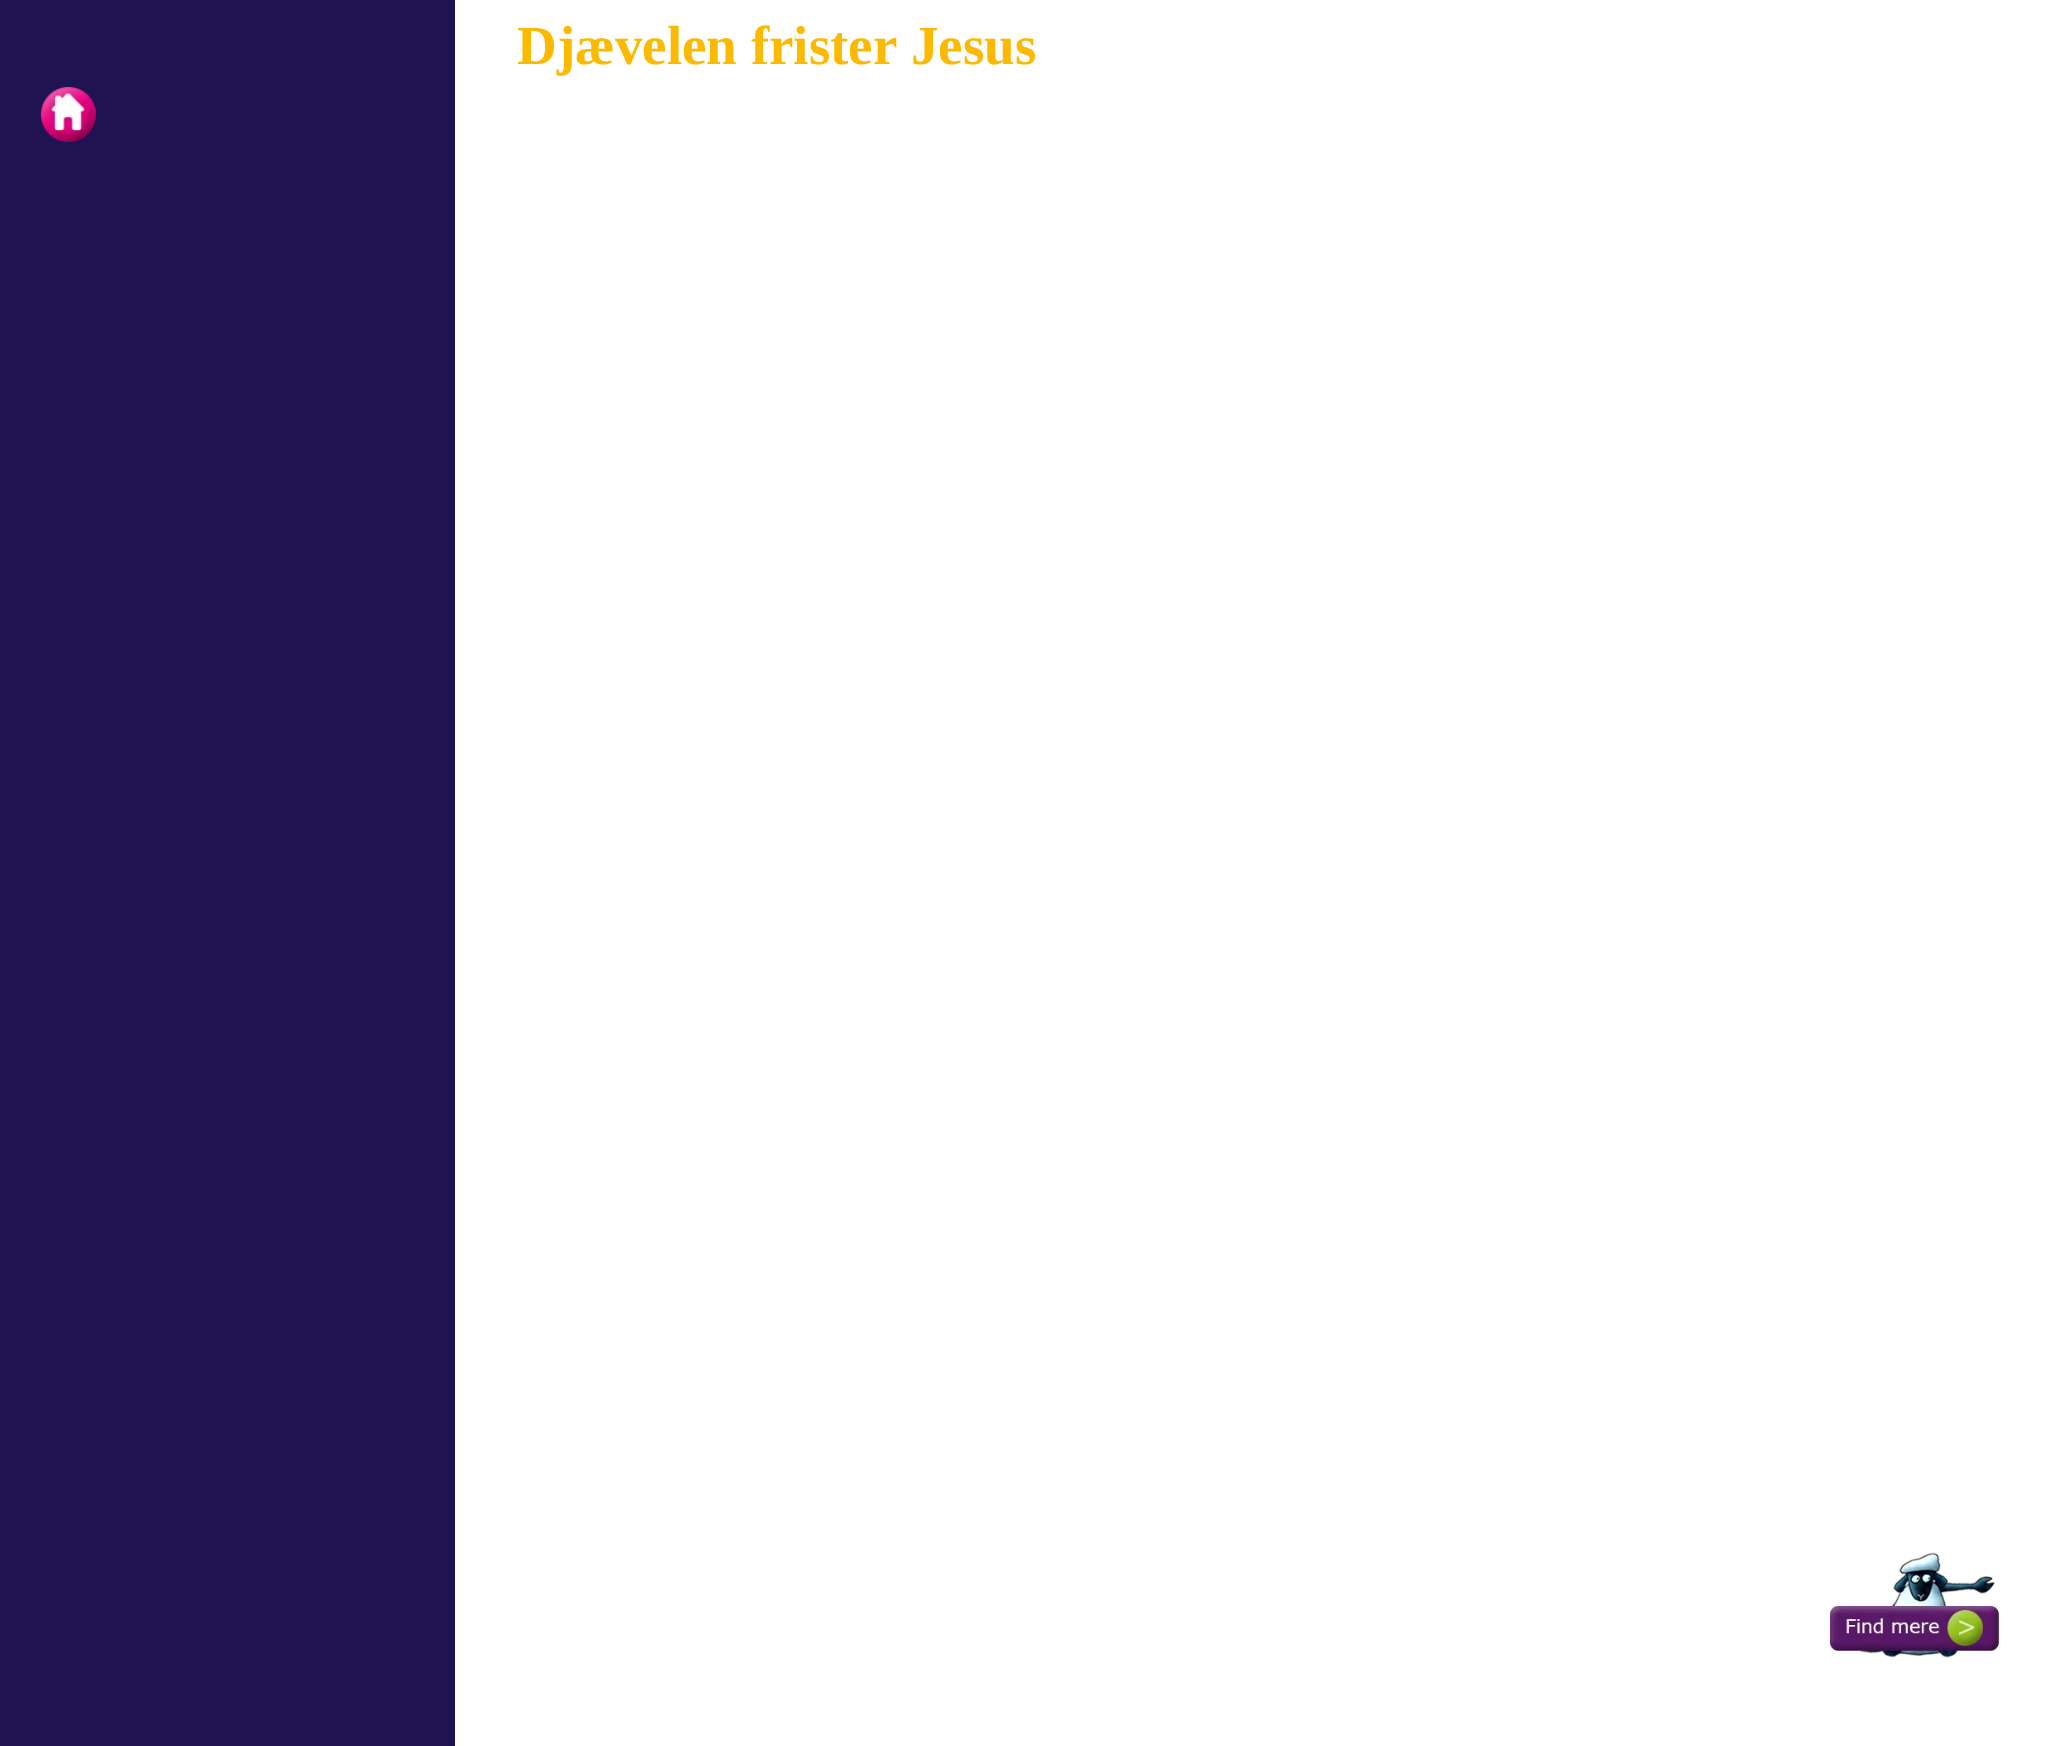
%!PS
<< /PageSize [2069 1746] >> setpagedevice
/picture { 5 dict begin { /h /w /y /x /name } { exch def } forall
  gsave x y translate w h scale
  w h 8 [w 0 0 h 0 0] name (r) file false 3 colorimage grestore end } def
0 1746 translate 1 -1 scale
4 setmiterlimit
1 setgray
0 0 2069 1746 rectfill
0.122 0.075 0.322 setrgbcolor
0 0 455 1746 rectfill
/LiberationSerif-Bold [55 0 0 -55 0 0] selectfont
0.984 0.729 0 setrgbcolor
517 64 moveto (Djævelen frister Jesus) show
(img1.rgb) 41 87 55 55 picture
(img2.rgb) 1830 1552 169 106 picture
showpage
